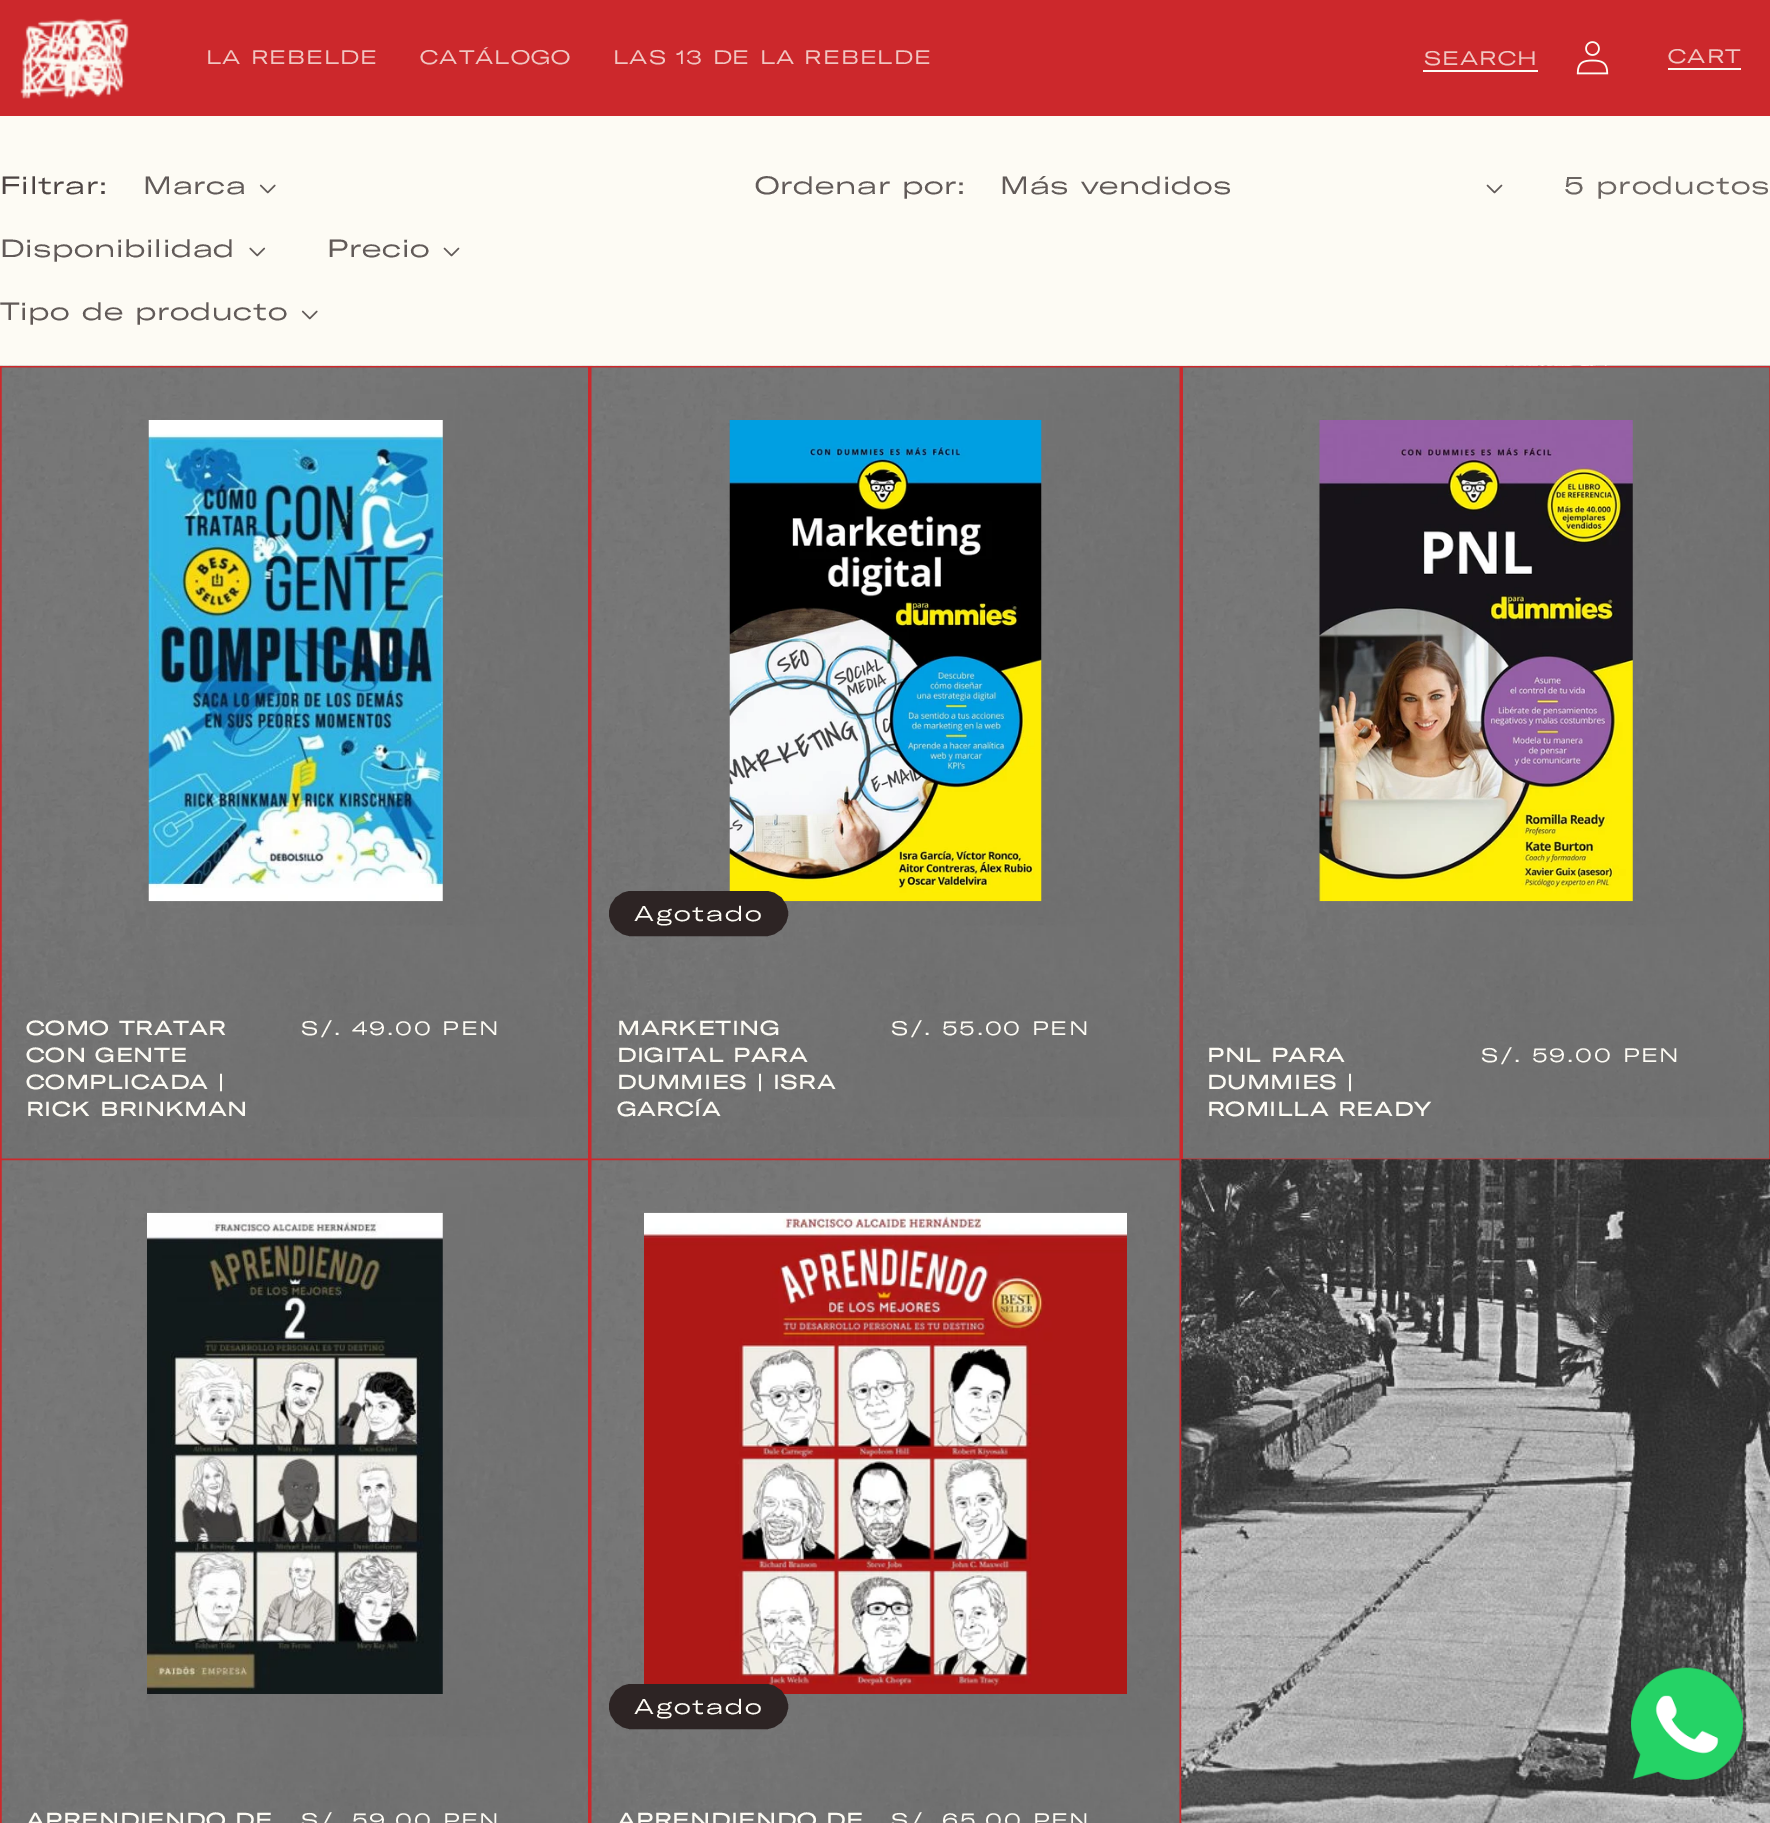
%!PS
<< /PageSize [1770 1823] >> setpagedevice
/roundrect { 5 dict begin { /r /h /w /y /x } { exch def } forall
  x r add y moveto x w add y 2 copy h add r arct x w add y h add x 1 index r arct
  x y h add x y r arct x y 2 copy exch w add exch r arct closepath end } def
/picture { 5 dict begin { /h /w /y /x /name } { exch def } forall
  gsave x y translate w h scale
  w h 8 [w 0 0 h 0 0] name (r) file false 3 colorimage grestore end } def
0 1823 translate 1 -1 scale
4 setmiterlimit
0.992 0.984 0.957 setrgbcolor
0 0 1770 1823 rectfill
0.8 0.157 0.173 setrgbcolor
0 0 1770 116 rectfill
(img1.rgb) 20 18 109 81 picture
/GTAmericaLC-Regular [19.25 0 0 -19.25 0 0] selectfont
0.945 0.776 0.761 setrgbcolor
206 64 moveto 1.05 0 (LA REBELDE) ashow
420 64 moveto 1.05 0 (CATÁLOGO) ashow
613 64 moveto 1.05 0 (LAS 13 DE LA REBELDE) ashow
1424 65 moveto 1.05 0 (SEARCH) ashow
0.992 0.984 0.957 setrgbcolor
1423 70 115 2 rectfill
(img2.rgb) 1576 41 33 34 picture
0.945 0.776 0.761 setrgbcolor
1668 63 moveto 1.05 0 (CART) ashow
0.992 0.984 0.957 setrgbcolor
1668 68 73 2 rectfill
/GTAmericaLC-Regular [24.5 0 0 -24.5 0 0] selectfont
0.298 0.267 0.263 setrgbcolor
0 194 moveto 0.75 0 (Filtrar:) ashow
0.38 0.353 0.345 setrgbcolor
143 194 moveto 0.75 0 (Marca) ashow
(img3.rgb) 259 184 17 10 picture
0 257 moveto 0.75 0 (Disponibilidad) ashow
(img4.rgb) 249 247 17 10 picture
327 257 moveto 0.75 0 (Precio) ashow
(img5.rgb) 443 247 17 10 picture
0 320 moveto 0.75 0 (Tipo de producto) ashow
(img3.rgb) 301 310 17 10 picture
755 194 moveto 0.75 0 (Ordenar por:) ashow
1000 194 moveto 0.75 0 (Más vendidos) ashow
(img5.rgb) 1486 184 17 10 picture
0.42 0.396 0.384 setrgbcolor
1564 194 moveto 1.05 0 (5 productos) ashow
(img6.rgb) 0 365 1770 1458 picture
0.804 0.157 0.169 setrgbcolor
2 setlinewidth
1 367 588 791 rectstroke
(img7.rgb) 1 367 587 792 picture
(img8.rgb) 148 420 295 482 picture
/GTAmericaLC-Bold [19.25 0 0 -19.25 0 0] selectfont
0.992 0.984 0.957 setrgbcolor
26 1035 moveto 1.05 0 (COMO TRATAR) ashow
26 1062 moveto 1.05 0 (CON GENTE) ashow
26 1089 moveto 1.05 0 (COMPLICADA |) ashow
26 1116 moveto 1.05 0 (RICK BRINKMAN) ashow
/GTAmericaLC-Regular [19.25 0 0 -19.25 0 0] selectfont
301 1035 moveto 1.75 0 (S/. 49.00 PEN) ashow
0.804 0.157 0.169 setrgbcolor
591 367 589 791 rectstroke
(img9.rgb) 591 367 589 792 picture
(img10.rgb) 729 420 313 482 picture
0.176 0.141 0.141 setrgbcolor
610 892 177 43 21.5 roundrect gsave fill grestore
stroke
/GTAmericaLC-Regular [21 0 0 -21 0 0] selectfont
0.992 0.984 0.957 setrgbcolor
634 921 moveto 1.75 0 (Agotado) ashow
/GTAmericaLC-Bold [19.25 0 0 -19.25 0 0] selectfont
617 1035 moveto 1.05 0 (MARKETING) ashow
617 1062 moveto 1.05 0 (DIGITAL PARA) ashow
617 1089 moveto 1.05 0 (DUMMIES | ISRA) ashow
617 1116 moveto 1.05 0 (GARCÍA) ashow
/GTAmericaLC-Regular [19.25 0 0 -19.25 0 0] selectfont
891 1035 moveto 1.75 0 (S/. 55.00 PEN) ashow
0.804 0.157 0.169 setrgbcolor
1182 367 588 791 rectstroke
(img11.rgb) 1183 367 587 792 picture
(img12.rgb) 1319 420 314 482 picture
/GTAmericaLC-Bold [19.25 0 0 -19.25 0 0] selectfont
0.992 0.984 0.957 setrgbcolor
1207 1062 moveto 1.05 0 (PNL PARA) ashow
1207 1089 moveto 1.05 0 (DUMMIES |) ashow
1207 1116 moveto 1.05 0 (ROMILLA READY) ashow
/GTAmericaLC-Regular [19.25 0 0 -19.25 0 0] selectfont
1481 1062 moveto 1.75 0 (S/. 59.00 PEN) ashow
0.804 0.157 0.169 setrgbcolor
1 1160 588 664 rectstroke
(img13.rgb) 1 1160 587 663 picture
(img14.rgb) 147 1212 296 482 picture
/GTAmericaLC-Bold [19.25 0 0 -19.25 0 0] selectfont
0.992 0.984 0.957 setrgbcolor
26 1827 moveto 1.05 0 (APRENDIENDO DE) ashow
/GTAmericaLC-Regular [19.25 0 0 -19.25 0 0] selectfont
301 1827 moveto 1.75 0 (S/. 59.00 PEN) ashow
0.804 0.157 0.169 setrgbcolor
591 1160 589 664 rectstroke
(img15.rgb) 591 1160 589 663 picture
(img16.rgb) 644 1212 483 482 picture
0.176 0.141 0.141 setrgbcolor
610 1685 177 43 21.5 roundrect gsave fill grestore
stroke
/GTAmericaLC-Regular [21 0 0 -21 0 0] selectfont
0.992 0.984 0.957 setrgbcolor
634 1714 moveto 1.75 0 (Agotado) ashow
/GTAmericaLC-Bold [19.25 0 0 -19.25 0 0] selectfont
617 1827 moveto 1.05 0 (APRENDIENDO DE) ashow
/GTAmericaLC-Regular [19.25 0 0 -19.25 0 0] selectfont
891 1827 moveto 1.75 0 (S/. 65.00 PEN) ashow
(img17.rgb) 1631 1667 112 113 picture
showpage
